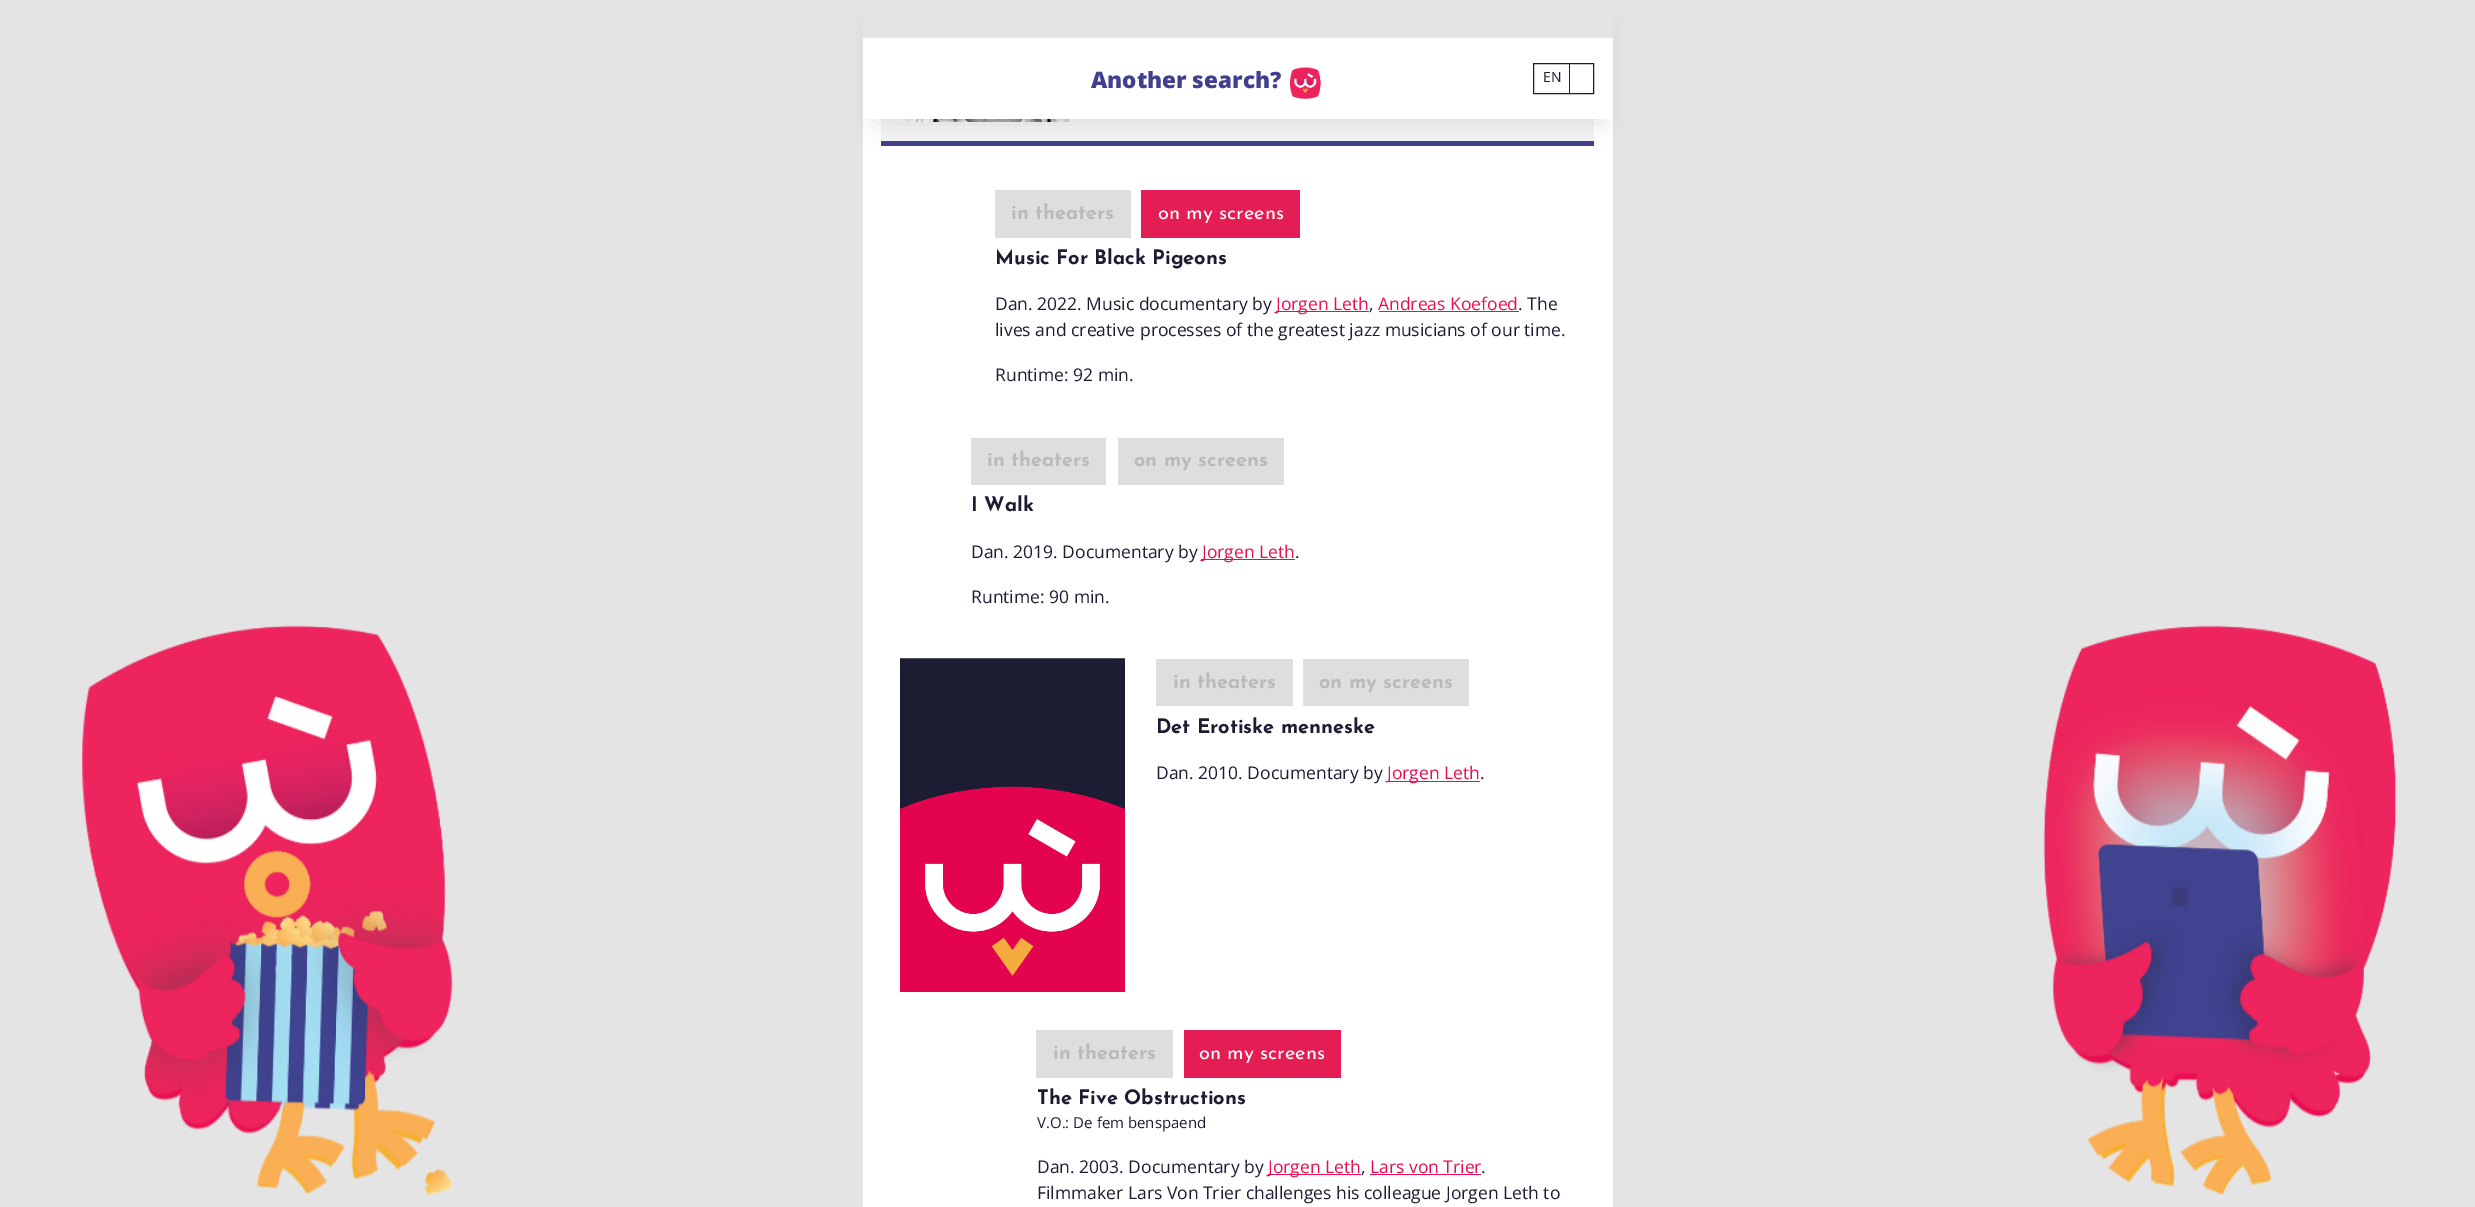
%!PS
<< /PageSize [2475 1207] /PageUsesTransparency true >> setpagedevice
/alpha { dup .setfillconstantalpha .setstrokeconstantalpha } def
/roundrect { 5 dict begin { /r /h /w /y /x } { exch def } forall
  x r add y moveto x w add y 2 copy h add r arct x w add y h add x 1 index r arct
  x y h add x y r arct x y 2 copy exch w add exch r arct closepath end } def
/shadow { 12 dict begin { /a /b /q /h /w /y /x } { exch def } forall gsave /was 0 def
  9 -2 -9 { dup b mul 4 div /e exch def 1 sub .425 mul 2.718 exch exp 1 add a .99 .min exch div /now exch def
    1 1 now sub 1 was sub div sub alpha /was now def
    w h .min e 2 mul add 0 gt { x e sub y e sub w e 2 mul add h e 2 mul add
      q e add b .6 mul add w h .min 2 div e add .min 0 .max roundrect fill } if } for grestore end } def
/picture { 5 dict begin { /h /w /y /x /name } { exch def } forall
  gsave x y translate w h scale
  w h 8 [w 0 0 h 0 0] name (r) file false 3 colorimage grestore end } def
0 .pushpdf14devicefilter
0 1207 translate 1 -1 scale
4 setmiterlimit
0.894 setgray
0 0 2475 1207 rectfill
(img4.rgb) 82 625 2315 571 picture
1 setgray
863 119 750 1088 rectfill
0.957 setgray
881 119 713 22 rectfill
0.251 0.251 0.557 setrgbcolor
881 141 713 5 rectfill
(img2.rgb) 900 119 169 3 picture
0 setgray
874 24 730 99 0 12.5 0.1 shadow
1 setgray
863 38 750 81 rectfill
0.894 setgray
863 9 750 29 rectfill
/OpenSans-ExtraBold [22.5 0 0 -22.5 0 0] selectfont
0.251 0.251 0.557 setrgbcolor
1091 88 moveto (Another search?) show
(img1.rgb) 1290 67 31 32 picture
0.11 0.11 0.2 setrgbcolor
1533.5 63.5 60 30 rectstroke
/OpenSans-Regular [14 0 0 -14 0 0] selectfont
1543 82 moveto (EN) show
1569 64 1 29 rectfill
0.871 setgray
995 190 136 48 rectfill
/JosefinSans-Bold [20 0 0 -20 0 0] selectfont
0.729 setgray
1011 219 moveto (in theaters) show
0.894 0.114 0.333 setrgbcolor
1141 190 159 48 rectfill
/JosefinSans-Regular [20 0 0 -20 0 0] selectfont
1 setgray
1158 219 moveto (on my screens) show
/JosefinSans-Bold [20 0 0 -20 0 0] selectfont
0.11 0.11 0.2 setrgbcolor
995 264 moveto (Music For Black Pigeons) show
/OpenSans-Regular [17.5 0 0 -17.5 0 0] selectfont
995 310 moveto (Dan. 2022. Music documentary by) show
0.914 0.055 0.322 setrgbcolor
1276 311 93 1 rectfill
1276 310 moveto (Jorgen Leth) show
0.11 0.11 0.2 setrgbcolor
1369 310 moveto (,) show
0.914 0.055 0.322 setrgbcolor
1378 310 moveto (Andreas Koefoed) show
1379 311 140 1 rectfill
0.11 0.11 0.2 setrgbcolor
1518 310 moveto (. The) show
995 336 moveto (lives and creative processes of the greatest jazz musicians of our time.) show
995 381 moveto (Runtime: 92 min.) show
0.871 setgray
971 438 135 47 rectfill
/JosefinSans-Bold [20 0 0 -20 0 0] selectfont
0.729 setgray
987 466 moveto (in theaters) show
0.871 setgray
1118 438 166 47 rectfill
0.729 setgray
1134 466 moveto (on my screens) show
0.11 0.11 0.2 setrgbcolor
971 511 moveto (I Walk) show
/OpenSans-Regular [17.5 0 0 -17.5 0 0] selectfont
971 558 moveto (Dan. 2019. Documentary by) show
0.914 0.055 0.322 setrgbcolor
1201 559 94 1 rectfill
1202 558 moveto (Jorgen Leth) show
0.11 0.11 0.2 setrgbcolor
1295 558 moveto (.) show
971 603 moveto (Runtime: 90 min.) show
(img3.rgb) 900 658 225 334 picture
0.871 setgray
1156 659 137 47 rectfill
/JosefinSans-Bold [20 0 0 -20 0 0] selectfont
0.729 setgray
1173 688 moveto (in theaters) show
0.871 setgray
1303 659 166 47 rectfill
0.729 setgray
1319 688 moveto (on my screens) show
0.11 0.11 0.2 setrgbcolor
1156 733 moveto (Det Erotiske menneske) show
/OpenSans-Regular [17.5 0 0 -17.5 0 0] selectfont
1156 779 moveto (Dan. 2010. Documentary by) show
0.914 0.055 0.322 setrgbcolor
1388 781 92 1 rectfill
1387 779 moveto (Jorgen Leth) show
0.11 0.11 0.2 setrgbcolor
1480 779 moveto (.) show
0.871 setgray
1036 1030 137 48 rectfill
/JosefinSans-Bold [20 0 0 -20 0 0] selectfont
0.729 setgray
1053 1059 moveto (in theaters) show
0.894 0.114 0.333 setrgbcolor
1184 1030 157 48 rectfill
/JosefinSans-Regular [20 0 0 -20 0 0] selectfont
1 setgray
1199 1059 moveto (on my screens) show
/JosefinSans-Bold [20 0 0 -20 0 0] selectfont
0.11 0.11 0.2 setrgbcolor
1037 1104 moveto (The Five Obstructions) show
/OpenSans-Regular [15 0 0 -15 0 0] selectfont
1037 1128 moveto (V.O.: De fem benspaend) show
/OpenSans-Regular [17.5 0 0 -17.5 0 0] selectfont
1037 1173 moveto (Dan. 2003. Documentary by) show
0.914 0.055 0.322 setrgbcolor
1268 1174 93 1 rectfill
1268 1173 moveto (Jorgen Leth) show
0.11 0.11 0.2 setrgbcolor
1361 1173 moveto (,) show
0.914 0.055 0.322 setrgbcolor
1370 1173 moveto (Lars von Trier) show
1370 1174 111 1 rectfill
0.11 0.11 0.2 setrgbcolor
1481 1173 moveto (.) show
1037 1199 moveto (Filmmaker Lars Von Trier challenges his colleague Jorgen Leth to) show
.poppdf14devicefilter showpage
